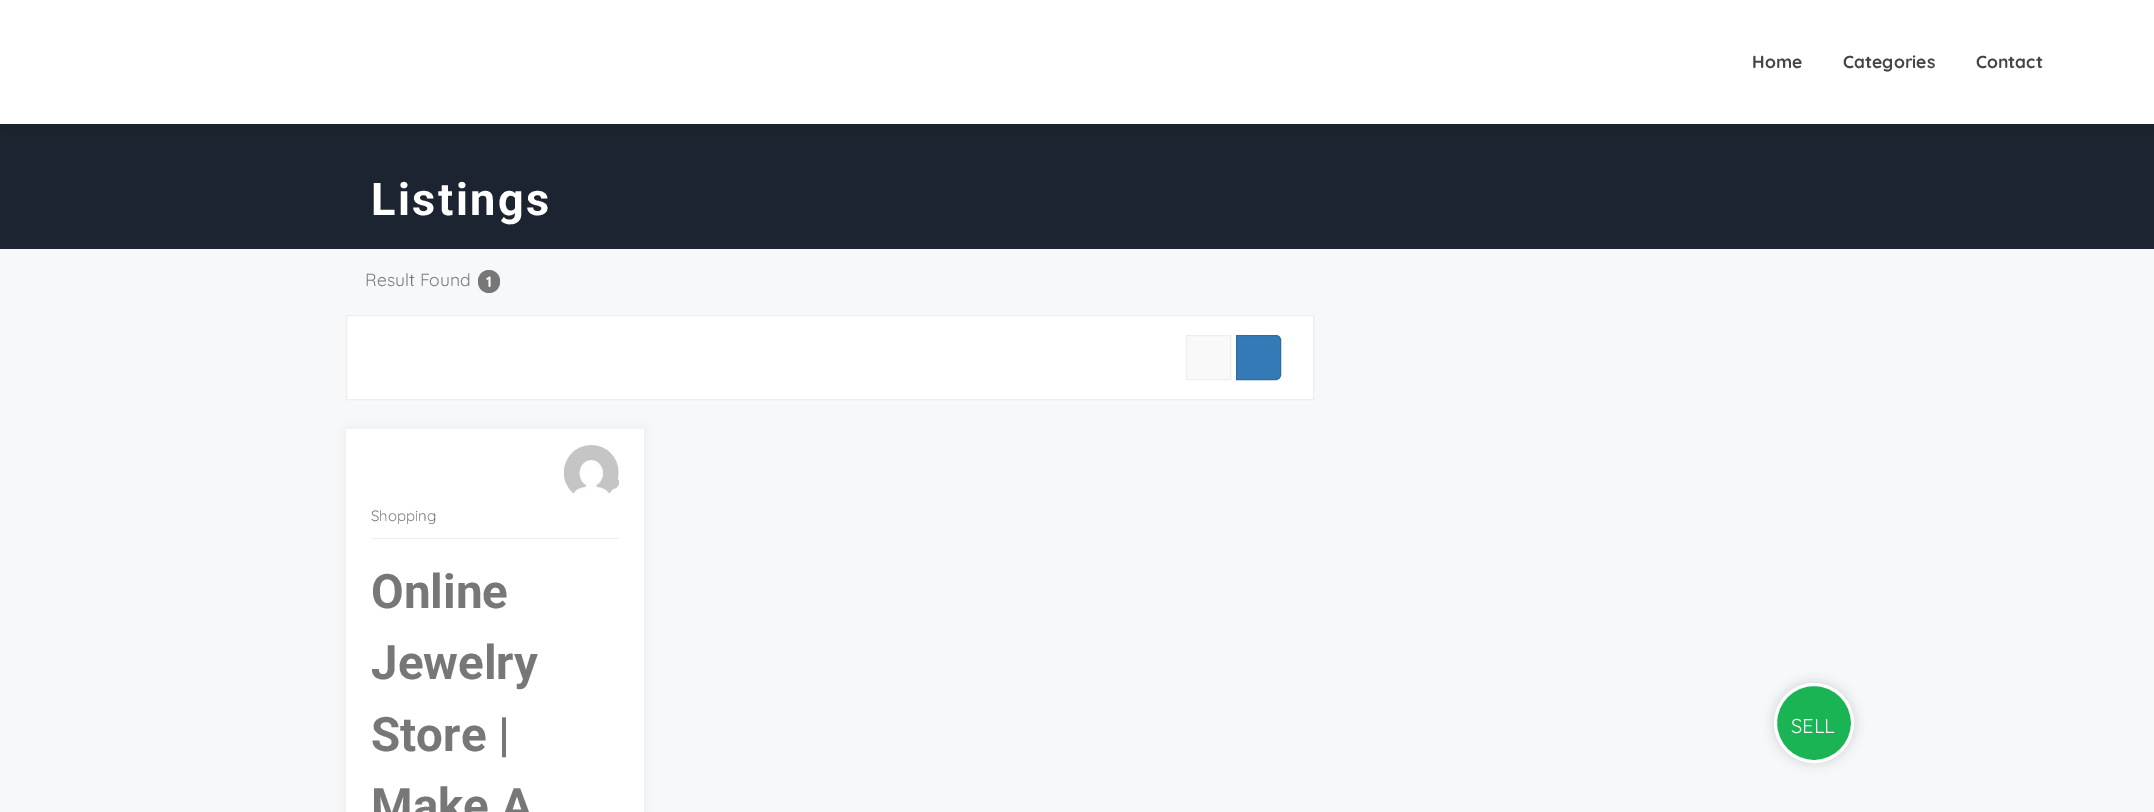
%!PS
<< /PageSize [2154 812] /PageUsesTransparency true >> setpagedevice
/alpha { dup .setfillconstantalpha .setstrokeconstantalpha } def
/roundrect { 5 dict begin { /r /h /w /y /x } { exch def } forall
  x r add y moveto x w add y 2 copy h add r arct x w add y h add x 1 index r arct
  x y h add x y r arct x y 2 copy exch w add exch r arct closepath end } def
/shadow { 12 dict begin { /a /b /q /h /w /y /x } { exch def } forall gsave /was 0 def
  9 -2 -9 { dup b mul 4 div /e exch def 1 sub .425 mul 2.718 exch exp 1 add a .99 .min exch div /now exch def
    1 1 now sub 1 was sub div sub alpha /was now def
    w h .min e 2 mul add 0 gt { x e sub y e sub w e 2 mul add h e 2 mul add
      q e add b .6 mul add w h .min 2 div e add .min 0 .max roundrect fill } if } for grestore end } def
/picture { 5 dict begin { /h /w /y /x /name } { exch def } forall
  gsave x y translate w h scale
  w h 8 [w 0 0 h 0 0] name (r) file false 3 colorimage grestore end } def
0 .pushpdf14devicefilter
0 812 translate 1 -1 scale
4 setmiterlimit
0.969 0.973 0.976 setrgbcolor
0 0 2154 812 rectfill
0.11 0.141 0.192 setrgbcolor
0 124 2154 125 rectfill
0 setgray
0 0 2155 124 0 12.5 0.15 shadow
1 setgray
0 0 2154 124 rectfill
/Quicksand-Bold [17.5 0 0 -17.5 0 0] selectfont
0.267 setgray
1752 68 moveto (Home) show
1843 68 moveto (Categories) show
1976 68 moveto (Contact) show
/Roboto-Bold [45 0 0 -45 0 0] selectfont
1 setgray
371 215 moveto 2.5 0 (Listings) ashow
/Quicksand-Regular [17.5 0 0 -17.5 0 0] selectfont
0.467 setgray
365 286 moveto (Result Found) show
478 270 22 23 11 roundrect fill
/Quicksand-Bold [15 0 0 -15 0 0] selectfont
1 setgray
486 287 moveto (1) show
newpath 346.5 315.5 moveto 1313.5 315.5 lineto 1313.5 399.5 lineto 346.5 399.5 lineto closepath gsave fill grestore
0.933 setgray
stroke
0.976 setgray
newpath 1186.5 335.5 moveto 1230.5 335.5 lineto 1230.5 379.5 lineto 1186.5 379.5 lineto closepath gsave fill grestore
0.933 setgray
stroke
0.2 0.478 0.718 setrgbcolor
newpath 1236.5 335.5 moveto 1276 335.5 lineto 1278.5 335.5 1280.5 337.5 1280.5 340 curveto 1280.5 375 lineto 1280.5 377.5 1278.5 379.5 1276 379.5 curveto 1236.5 379.5 lineto closepath gsave fill grestore
0.18 0.427 0.643 setrgbcolor
stroke
0 setgray
346 429 298 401 0 6 0.05 shadow
1 setgray
346 429 298 383 rectfill
(img1.rgb) 564 445 55 49 picture
0.773 setgray
newpath 612.5 482.5 6.5 0 360 arc closepath fill
0.933 setgray
371 538 248 1 rectfill
/Quicksand-Regular [15 0 0 -15 0 0] selectfont
0.467 setgray
371 521 moveto (Shopping) show
/Roboto-Bold [47.5 0 0 -47.5 0 0] selectfont
371 608 moveto (Online) show
371 679 moveto (Jewelry) show
371 751 moveto (Store |) show
371 822 moveto (Make A) show
0 setgray
1774 683 80 80 40 6 0.15 shadow
0.102 0.706 0.329 setrgbcolor
newpath 1814 723 38.5 0 360 arc closepath gsave fill grestore
1 setgray
3 setlinewidth
stroke
/Quicksand-Regular [20 0 0 -20 0 0] selectfont
1791 733 moveto (SELL) show
.poppdf14devicefilter showpage
